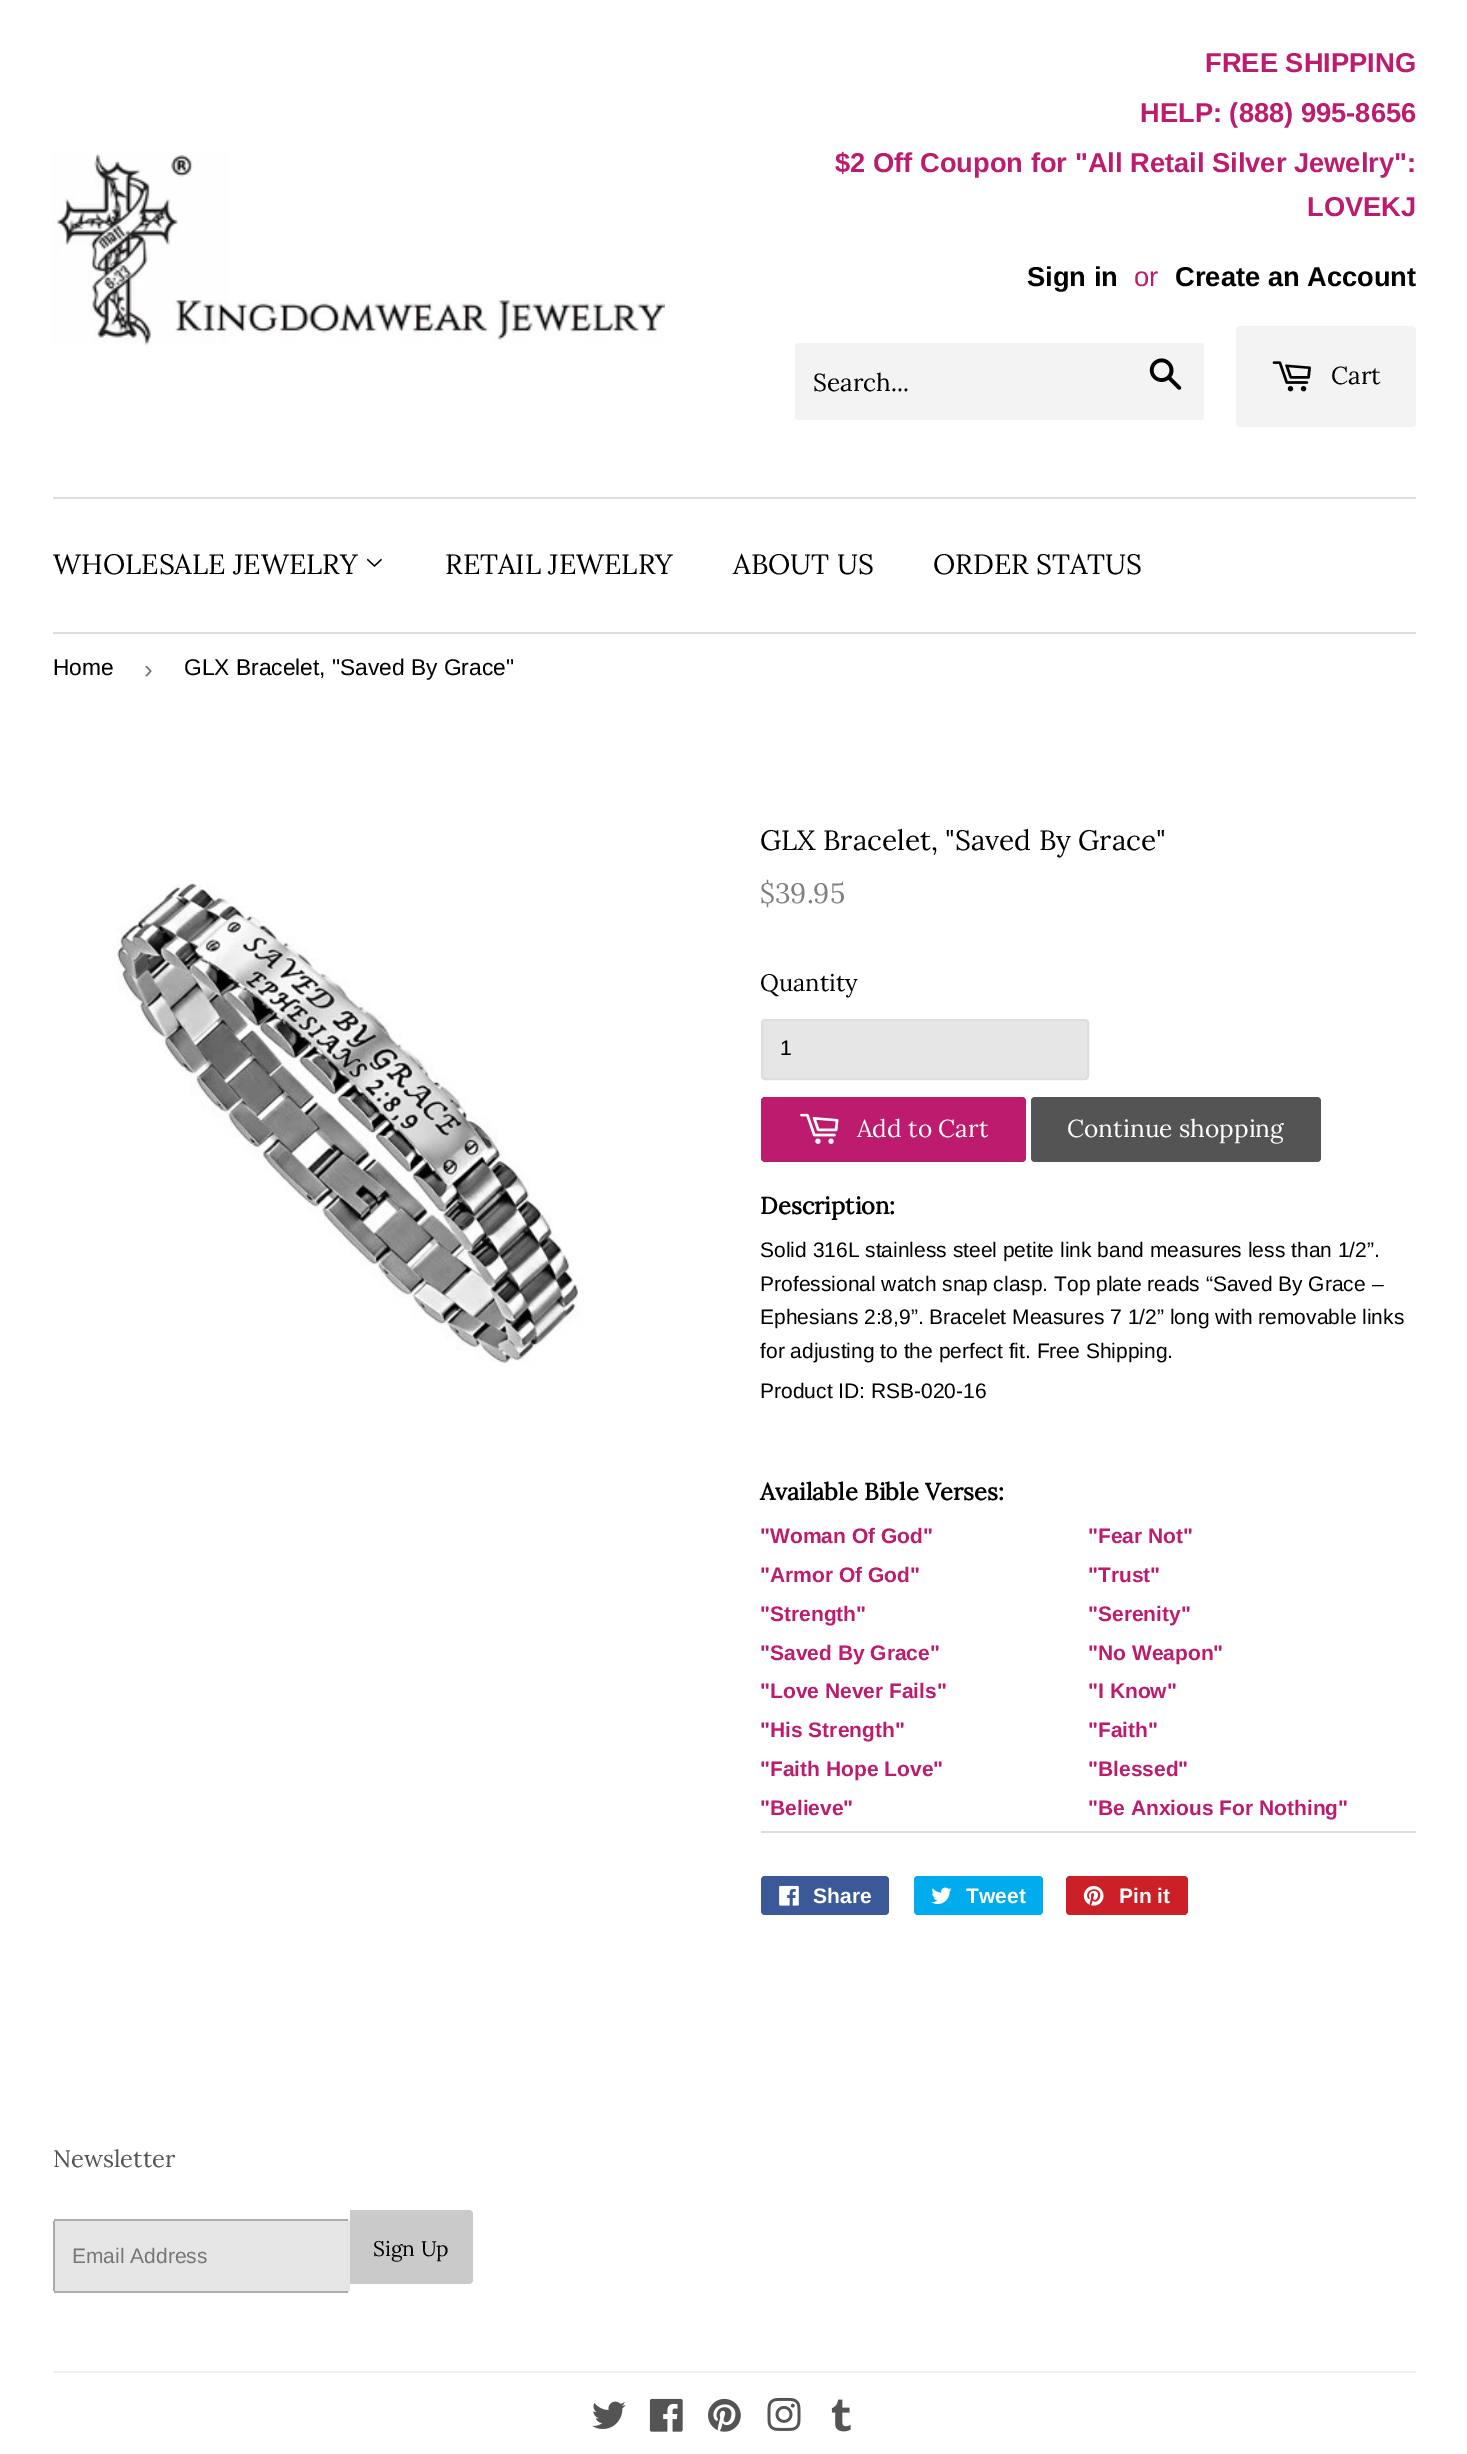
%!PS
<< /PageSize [1467 2454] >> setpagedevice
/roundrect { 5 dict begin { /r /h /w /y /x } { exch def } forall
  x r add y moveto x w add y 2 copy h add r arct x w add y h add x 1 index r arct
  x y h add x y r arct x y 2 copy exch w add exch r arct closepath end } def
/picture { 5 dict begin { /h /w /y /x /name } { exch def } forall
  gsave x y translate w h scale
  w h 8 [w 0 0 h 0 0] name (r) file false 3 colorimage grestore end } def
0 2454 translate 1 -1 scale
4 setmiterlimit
1 setgray
0 0 1467 2454 rectfill
(img1.rgb) 52 153 613 193 picture
/LiberationSans-Bold [27.3 0 0 -27.3 0 0] selectfont
0.741 0.106 0.427 setrgbcolor
1205 72 moveto (FREE SHIPPING) show
1140 122 moveto (HELP: \(888\) 995-8656) show
835 172 moveto ($2 Off Coupon for "All Retail Silver Jewelry":) show
1307 216 moveto (LOVEKJ) show
0 setgray
1027 286 moveto (Sign in) show
/LiberationSans-Regular [27.3 0 0 -27.3 0 0] selectfont
0.741 0.106 0.427 setrgbcolor
1134 286 moveto (or) show
/LiberationSans-Bold [27.3 0 0 -27.3 0 0] selectfont
0 setgray
1175 286 moveto (Create an Account) show
0.953 setgray
795 343 409 77 4 roundrect fill
/Lora-Regular [24.5 0 0 -24.5 0 0] selectfont
0 setgray
813 391 moveto (Search...) show
(img2.rgb) 1149 358 33 32 picture
0.953 setgray
1236 326 180 101 4 roundrect fill
(img3.rgb) 1272 361 39 31 picture
0 setgray
1331 384 moveto (Cart) show
0.871 setgray
53 497 1363 2 rectfill
/Lora-Regular [28 0 0 -28 0 0] selectfont
0 setgray
53 574 moveto (WHOLESALE JEWELRY) show
(img4.rgb) 367 558 15 9 picture
445 574 moveto (RETAIL JEWELRY) show
733 574 moveto (ABOUT US) show
933 574 moveto (ORDER STATUS) show
0.871 setgray
53 632 1363 2 rectfill
/LiberationSans-Regular [22.75 0 0 -22.75 0 0] selectfont
0 setgray
53 675 moveto (Home) show
/LiberationSans-Regular [26 0 0 -26 0 0] selectfont
0.463 setgray
144 678 moveto (›) show
/LiberationSans-Regular [22.75 0 0 -22.75 0 0] selectfont
0 setgray
184 675 moveto (GLX Bracelet, "Saved By Grace") show
(img5.rgb) 116 883 467 484 picture
/Lora-Regular [28 0 0 -28 0 0] selectfont
760 850 moveto (GLX Bracelet, "Saved By Grace") show
0.502 setgray
760 903 moveto ($39.95) show
/Lora-Regular [23.75 0 0 -23.75 0 0] selectfont
0 setgray
760 991 moveto (Quantity) show
0.902 setgray
762 1020 326 59 3 roundrect gsave fill grestore
0.871 setgray
2 setlinewidth
stroke
/LiberationSans-Regular [21 0 0 -21 0 0] selectfont
0 setgray
780 1055 moveto (1) show
0.741 0.106 0.427 setrgbcolor
761 1097 265 65 4 roundrect fill
(img6.rgb) 800 1113 39 31 picture
/Lora-Regular [24.5 0 0 -24.5 0 0] selectfont
1 setgray
857 1137 moveto (Add to Cart) show
0.329 setgray
1031 1097 290 65 4 roundrect fill
1 setgray
1067 1137 moveto (Continue shopping) show
/Lora-Bold [23.75 0 0 -23.75 0 0] selectfont
0 setgray
760 1214 moveto (Description:) show
/LiberationSans-Regular [21 0 0 -21 0 0] selectfont
760 1257 moveto (Solid 316L stainless steel petite link band measures less than 1/2”.) show
760 1291 moveto (Professional watch snap clasp. Top plate reads “Saved By Grace –) show
760 1324 moveto (Ephesians 2:8,9”. Bracelet Measures 7 1/2” long with removable links) show
760 1358 moveto (for adjusting to the perfect fit. Free Shipping.) show
760 1398 moveto (Product ID: RSB-020-16) show
/Lora-Bold [23.75 0 0 -23.75 0 0] selectfont
760 1500 moveto (Available Bible Verses:) show
/LiberationSans-Bold [21 0 0 -21 0 0] selectfont
0.741 0.106 0.427 setrgbcolor
760 1543 moveto ("Woman Of God") show
1088 1543 moveto ("Fear Not") show
760 1582 moveto ("Armor Of God") show
1088 1582 moveto ("Trust") show
760 1621 moveto ("Strength") show
1088 1621 moveto ("Serenity") show
760 1660 moveto ("Saved By Grace") show
1088 1660 moveto ("No Weapon") show
760 1698 moveto ("Love Never Fails") show
1088 1698 moveto ("I Know") show
760 1737 moveto ("His Strength") show
1088 1737 moveto ("Faith") show
760 1776 moveto ("Faith Hope Love") show
1088 1776 moveto ("Blessed") show
760 1815 moveto ("Believe") show
1088 1815 moveto ("Be Anxious For Nothing") show
0.871 setgray
761 1831 655 2 rectfill
0.231 0.349 0.596 setrgbcolor
761 1876 128 39 4 roundrect fill
(img7.rgb) 779 1885 20 21 picture
1 setgray
813 1903 moveto (Share) show
0 0.675 0.929 setrgbcolor
914 1876 129 39 4 roundrect fill
(img8.rgb) 931 1887 21 17 picture
1 setgray
966 1903 moveto (Tweet) show
0.796 0.125 0.153 setrgbcolor
1066 1876 122 39 4 roundrect fill
(img9.rgb) 1083 1886 21 20 picture
1 setgray
1119 1903 moveto (Pin it) show
/Lora-Regular [23.75 0 0 -23.75 0 0] selectfont
0.329 setgray
53 2167 moveto (Newsletter) show
0.902 setgray
53 2219 297 74 4 roundrect fill
0.671 setgray
54 2219 294 2 rectfill
54 2291 294 2 rectfill
53 2221 2 70 rectfill
/LiberationSans-Regular [21 0 0 -21 0 0] selectfont
0.463 setgray
72 2263 moveto (Email Address) show
0.796 0.792 0.792 setrgbcolor
newpath 350 2210 moveto 469 2210 lineto 471 2210 473 2212 473 2214 curveto 473 2280 lineto 473 2282 471 2284 469 2284 curveto 350 2284 lineto closepath fill
/Lora-Regular [21 0 0 -21 0 0] selectfont
0 setgray
373 2256 moveto (Sign Up) show
0.949 setgray
53 2371 1363 2 rectfill
(img10.rgb) 592 2401 34 28 picture
(img11.rgb) 649 2398 34 34 picture
(img12.rgb) 708 2398 33 34 picture
(img13.rgb) 767 2397 34 34 picture
(img14.rgb) 831 2399 20 33 picture
showpage
